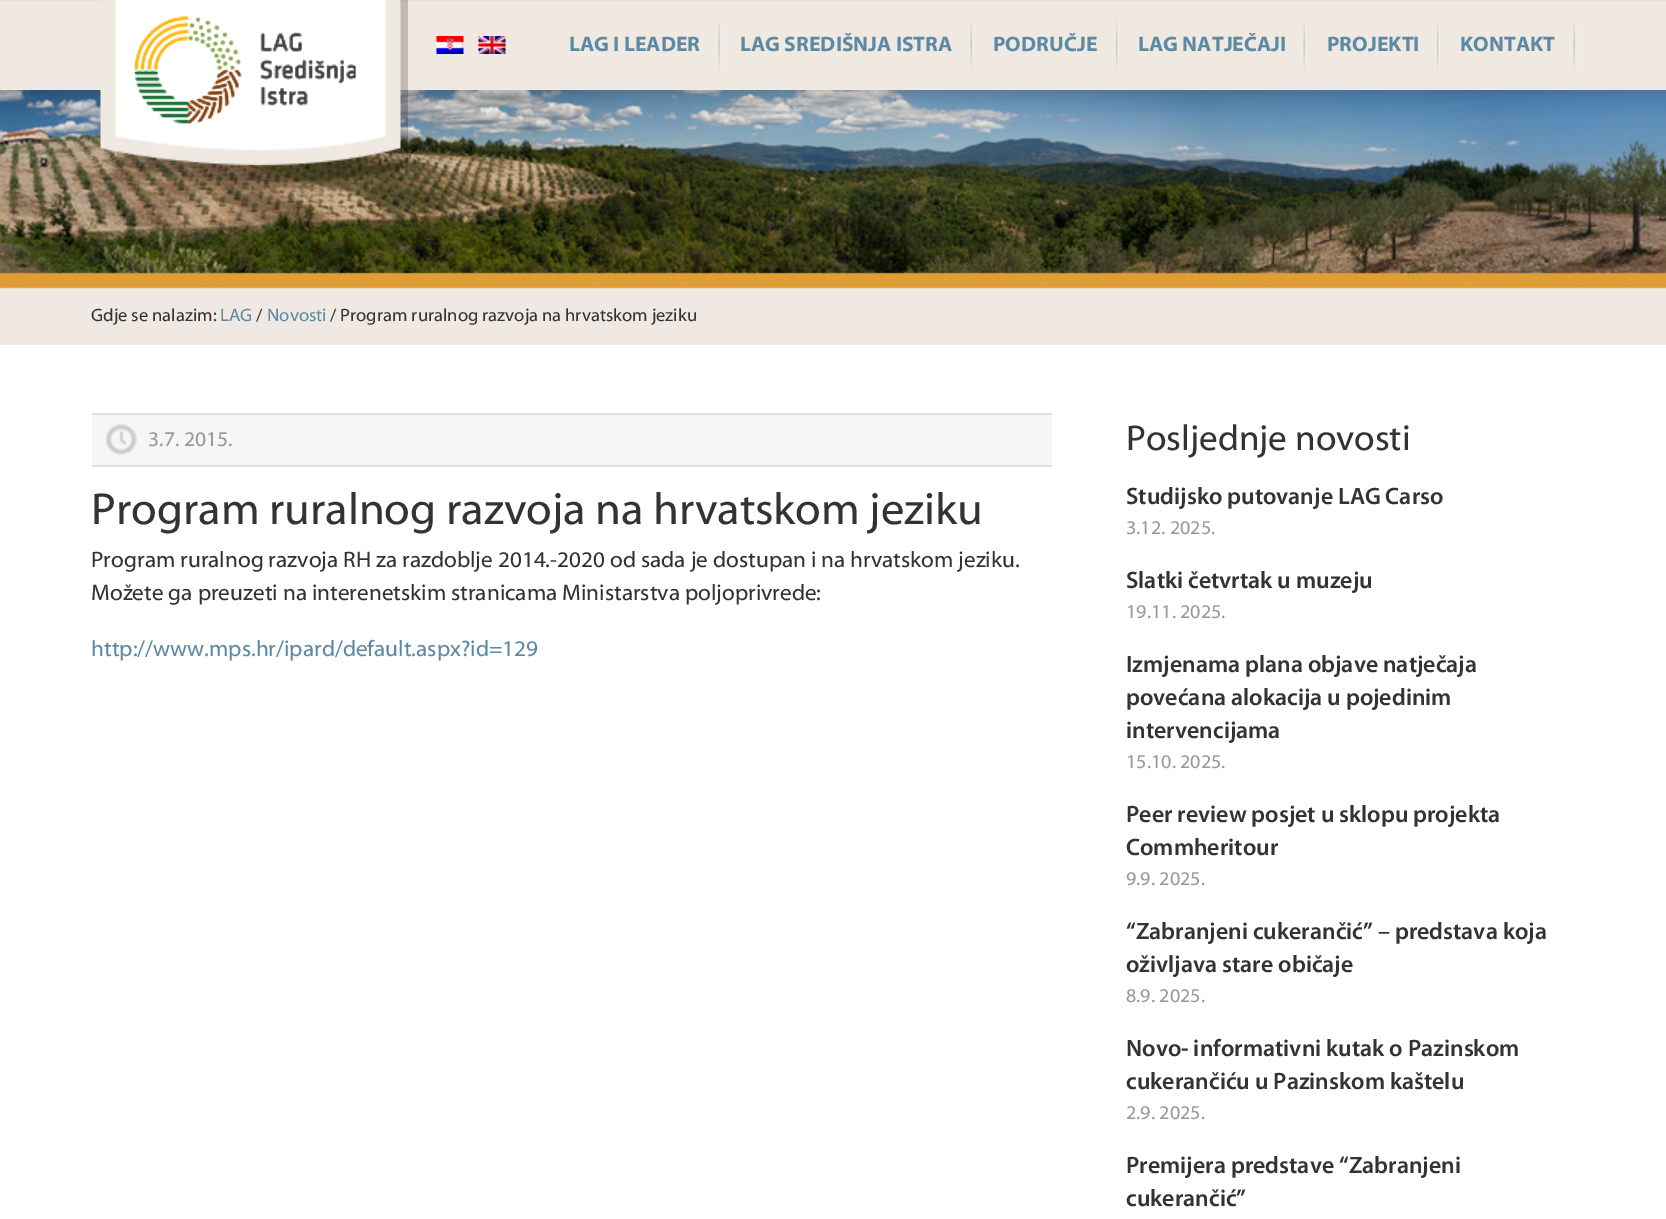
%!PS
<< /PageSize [1666 1219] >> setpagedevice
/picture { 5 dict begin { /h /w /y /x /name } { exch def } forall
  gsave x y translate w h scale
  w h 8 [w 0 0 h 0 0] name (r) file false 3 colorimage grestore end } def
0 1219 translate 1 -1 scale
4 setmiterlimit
1 setgray
0 0 1666 1219 rectfill
(img1.rgb) 0 0 1666 90 picture
(img9.rgb) 0 90 1666 255 picture
(img2.rgb) 100 0 308 182 picture
(img3.rgb) 134 16 222 108 picture
(img4.rgb) 436 36 28 18 picture
(img5.rgb) 478 36 28 18 picture
(img6.rgb) 718 19 4 52 picture
/Myriad-Bold [21 0 0 -21 0 0] selectfont
0.361 0.537 0.639 setrgbcolor
569 51 moveto (LAG I LEADER) show
(img6.rgb) 970 19 4 52 picture
740 51 moveto (LAG SREDIŠNJA ISTRA) show
(img7.rgb) 1116 18 3 54 picture
993 51 moveto (PODRUČJE) show
(img6.rgb) 1303 19 4 52 picture
1138 51 moveto (LAG NATJEČAJI) show
(img8.rgb) 1437 18 3 54 picture
1327 51 moveto (PROJEKTI) show
(img6.rgb) 1573 19 4 52 picture
1460 51 moveto (KONTAKT) show
/Myriad-Regular [18 0 0 -18 0 0] selectfont
0.2 setgray
91 321 moveto (Gdje se nalazim:) show
0.361 0.537 0.639 setrgbcolor
220 321 moveto (LAG) show
0.2 setgray
256 321 moveto (/) show
0.361 0.537 0.639 setrgbcolor
267 321 moveto (Novosti) show
0.2 setgray
330 321 moveto (/ Program ruralnog razvoja na hrvatskom jeziku) show
0.965 setgray
92 415 960 50 rectfill
(img10.rgb) 106 424 31 31 picture
0.867 setgray
92 413 960 2 rectfill
92 465 960 2 rectfill
/Myriad-Regular [21 0 0 -21 0 0] selectfont
0.6 setgray
148 446 moveto (3.7. 2015.) show
/Myriad-Regular [45 0 0 -45 0 0] selectfont
0.2 setgray
91 524 moveto (Program ruralnog razvoja na hrvatskom jeziku) show
/Myriad-Regular [22.5 0 0 -22.5 0 0] selectfont
91 567 moveto (Program ruralnog razvoja RH za razdoblje 2014.-2020 od sada je dostupan i na hrvatskom jeziku.) show
91 600 moveto (Možete ga preuzeti na interenetskim stranicama Ministarstva poljoprivrede:) show
0.361 0.537 0.639 setrgbcolor
91 656 moveto (http://www.mps.hr/ipard/default.aspx?id=129) show
/Myriad-Regular [36 0 0 -36 0 0] selectfont
0.2 setgray
1126 450 moveto (Posljednje novosti) show
/Myriad-SemiBold [22.5 0 0 -22.5 0 0] selectfont
1126 504 moveto (Studijsko putovanje LAG Carso) show
/Myriad-Regular [19.5 0 0 -19.5 0 0] selectfont
0.6 setgray
1126 534 moveto (3.12. 2025.) show
/Myriad-SemiBold [22.5 0 0 -22.5 0 0] selectfont
0.2 setgray
1126 588 moveto (Slatki četvrtak u muzeju) show
/Myriad-Regular [19.5 0 0 -19.5 0 0] selectfont
0.6 setgray
1126 618 moveto (19.11. 2025.) show
/Myriad-SemiBold [22.5 0 0 -22.5 0 0] selectfont
0.2 setgray
1126 672 moveto (Izmjenama plana objave natječaja) show
1126 705 moveto (povećana alokacija u pojedinim) show
1126 738 moveto (intervencijama) show
/Myriad-Regular [19.5 0 0 -19.5 0 0] selectfont
0.6 setgray
1126 768 moveto (15.10. 2025.) show
/Myriad-SemiBold [22.5 0 0 -22.5 0 0] selectfont
0.2 setgray
1126 822 moveto (Peer review posjet u sklopu projekta) show
1126 855 moveto (Commheritour) show
/Myriad-Regular [19.5 0 0 -19.5 0 0] selectfont
0.6 setgray
1126 885 moveto (9.9. 2025.) show
/Myriad-SemiBold [22.5 0 0 -22.5 0 0] selectfont
0.2 setgray
1126 939 moveto (“Zabranjeni cukerančić” – predstava koja) show
1126 972 moveto (oživljava stare običaje) show
/Myriad-Regular [19.5 0 0 -19.5 0 0] selectfont
0.6 setgray
1126 1002 moveto (8.9. 2025.) show
/Myriad-SemiBold [22.5 0 0 -22.5 0 0] selectfont
0.2 setgray
1126 1056 moveto (Novo- informativni kutak o Pazinskom) show
1126 1089 moveto (cukerančiću u Pazinskom kaštelu) show
/Myriad-Regular [19.5 0 0 -19.5 0 0] selectfont
0.6 setgray
1126 1119 moveto (2.9. 2025.) show
/Myriad-SemiBold [22.5 0 0 -22.5 0 0] selectfont
0.2 setgray
1126 1173 moveto (Premijera predstave “Zabranjeni) show
1126 1206 moveto (cukerančić”) show
showpage
